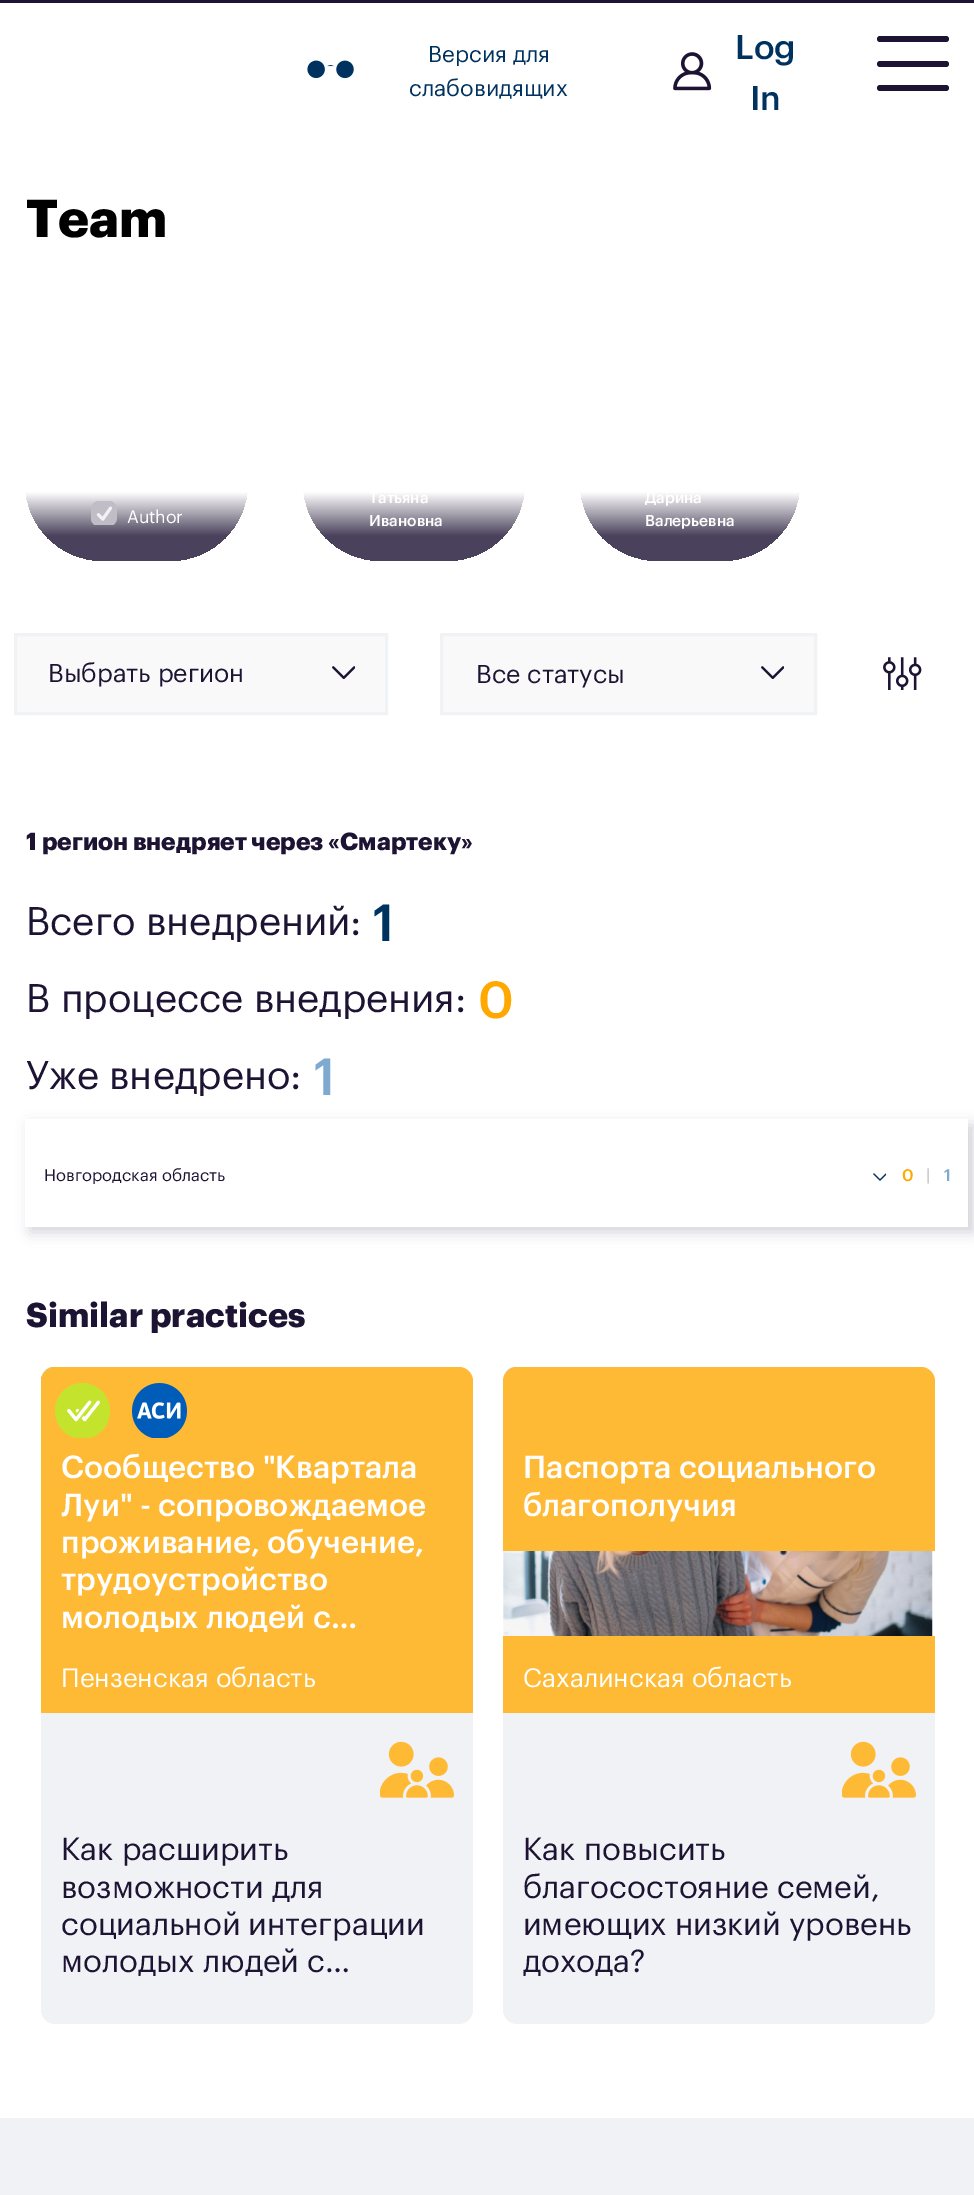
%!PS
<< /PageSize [974 2195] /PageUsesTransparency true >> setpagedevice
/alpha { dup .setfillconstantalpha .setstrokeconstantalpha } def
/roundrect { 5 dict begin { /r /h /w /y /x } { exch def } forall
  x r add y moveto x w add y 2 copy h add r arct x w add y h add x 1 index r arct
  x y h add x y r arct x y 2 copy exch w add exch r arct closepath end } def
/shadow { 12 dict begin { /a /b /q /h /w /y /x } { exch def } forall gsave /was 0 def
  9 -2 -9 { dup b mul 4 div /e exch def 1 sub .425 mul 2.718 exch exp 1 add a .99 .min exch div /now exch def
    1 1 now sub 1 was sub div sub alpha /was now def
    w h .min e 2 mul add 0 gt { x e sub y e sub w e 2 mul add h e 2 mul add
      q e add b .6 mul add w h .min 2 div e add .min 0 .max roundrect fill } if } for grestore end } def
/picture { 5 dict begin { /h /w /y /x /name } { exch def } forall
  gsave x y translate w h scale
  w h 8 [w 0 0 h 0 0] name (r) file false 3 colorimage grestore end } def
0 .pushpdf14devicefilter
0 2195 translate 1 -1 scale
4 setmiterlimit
1 setgray
0 0 974 2195 rectfill
0.114 0.075 0.2 setrgbcolor
0 0 974 3 rectfill
(img1.rgb) 307 60 47 19 picture
/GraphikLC-Regular [22.5 0 0 -22.5 0 0] selectfont
0 0.196 0.373 setrgbcolor
428 62 moveto (Версия для) show
409 96 moveto (слабовидящих) show
(img2.rgb) 673 52 39 39 picture
/GraphikLC-Medium [33.75 0 0 -33.75 0 0] selectfont
735 59 moveto (Log) show
750 110 moveto (In) show
0.114 0.075 0.2 setrgbcolor
877 61 72 6 3 roundrect fill
877 36 72 6 3 roundrect fill
877 85 72 6 3 roundrect fill
/GraphikLC-Bold [52 0 0 -52 0 0] selectfont
0 setgray
26 237 moveto (Team) show
gsave newpath 25 404 moveto 169.5 404 lineto 213 404 248 439 248 482.5 curveto 248 526 213 561 169.5 561 curveto 103.5 561 lineto 60 561 25 526 25 482.5 curveto closepath clip newpath
<< /ShadingType 2 /ColorSpace /DeviceRGB /Coords [136 404 136 561] /Extend [true true] /Function << /FunctionType 3 /Domain [0 1] /Functions [<< /FunctionType 2 /Domain [0 1] /C0 [1 1 1] /C1 [1 1 1] /N 1 >> << /FunctionType 2 /Domain [0 1] /C0 [1 1 1] /C1 [0.29 0.259 0.361] /N 1 >> << /FunctionType 2 /Domain [0 1] /C0 [0.29 0.259 0.361] /C1 [0.29 0.259 0.361] /N 1 >>] /Bounds [0.56 0.84] /Encode [0 1 0 1 0 1] >> >> shfill grestore
(img3.rgb) 91 501 26 24 picture
/GraphikLC-Regular [17.5 0 0 -17.5 0 0] selectfont
1 setgray
127 523 moveto (Author) show
gsave newpath 303 404 moveto 446.5 404 lineto 490 404 525 439 525 482.5 curveto 525 526 490 561 446.5 561 curveto 381.5 561 lineto 338 561 303 526 303 482.5 curveto closepath clip newpath
<< /ShadingType 2 /ColorSpace /DeviceRGB /Coords [414 404 414 561] /Extend [true true] /Function << /FunctionType 3 /Domain [0 1] /Functions [<< /FunctionType 2 /Domain [0 1] /C0 [1 1 1] /C1 [1 1 1] /N 1 >> << /FunctionType 2 /Domain [0 1] /C0 [1 1 1] /C1 [0.29 0.259 0.361] /N 1 >> << /FunctionType 2 /Domain [0 1] /C0 [0.29 0.259 0.361] /C1 [0.29 0.259 0.361] /N 1 >>] /Bounds [0.56 0.84] /Encode [0 1 0 1 0 1] >> >> shfill grestore
/GraphikLC-Medium [15.5 0 0 -15.5 0 0] selectfont
369 503 moveto (Татьяна) show
369 526 moveto (Ивановна) show
gsave newpath 580 404 moveto 721.5 404 lineto 765 404 800 439 800 482.5 curveto 800 526 765 561 721.5 561 curveto 658.5 561 lineto 615 561 580 526 580 482.5 curveto closepath clip newpath
<< /ShadingType 2 /ColorSpace /DeviceRGB /Coords [690 404 690 561] /Extend [true true] /Function << /FunctionType 3 /Domain [0 1] /Functions [<< /FunctionType 2 /Domain [0 1] /C0 [1 1 1] /C1 [1 1 1] /N 1 >> << /FunctionType 2 /Domain [0 1] /C0 [1 1 1] /C1 [0.29 0.259 0.361] /N 1 >> << /FunctionType 2 /Domain [0 1] /C0 [0.29 0.259 0.361] /C1 [0.29 0.259 0.361] /N 1 >>] /Bounds [0.56 0.84] /Encode [0 1 0 1 0 1] >> >> shfill grestore
645 503 moveto (Дарина) show
645 526 moveto (Валерьевна) show
0.976 setgray
newpath 15.5 634.5 moveto 386.5 634.5 lineto 386.5 713.5 lineto 15.5 713.5 lineto closepath gsave fill grestore
0.945 0.949 0.961 setrgbcolor
3 setlinewidth
stroke
/GraphikLC-Regular [25.25 0 0 -25.25 0 0] selectfont
0.114 0.075 0.2 setrgbcolor
48 682 moveto (Выбрать регион) show
(img4.rgb) 332 666 23 13 picture
0.976 setgray
newpath 441.5 634.5 moveto 815.5 634.5 lineto 815.5 713.5 lineto 441.5 713.5 lineto closepath gsave fill grestore
0.945 0.949 0.961 setrgbcolor
stroke
0.114 0.075 0.2 setrgbcolor
476 683 moveto (Все статусы) show
(img4.rgb) 761 666 23 13 picture
(img5.rgb) 883 657 39 33 picture
/GraphikLC-Bold [24.25 0 0 -24.25 0 0] selectfont
26 850 moveto (1 регион внедряет через «Смартеку») show
/GraphikLC-Regular [39 0 0 -39 0 0] selectfont
26 935 moveto (Всего внедрений:) show
/GraphikLC-Medium [51 0 0 -51 0 0] selectfont
0 0.196 0.373 setrgbcolor
373 941 moveto (1) show
/GraphikLC-Regular [39 0 0 -39 0 0] selectfont
0.114 0.075 0.2 setrgbcolor
26 1012 moveto (В процессе внедрения:) show
/GraphikLC-Medium [51 0 0 -51 0 0] selectfont
1 0.659 0 setrgbcolor
478 1018 moveto (0) show
/GraphikLC-Regular [39 0 0 -39 0 0] selectfont
0.114 0.075 0.2 setrgbcolor
26 1089 moveto (Уже внедрено:) show
/GraphikLC-Medium [51 0 0 -51 0 0] selectfont
0.498 0.667 0.812 setrgbcolor
314 1095 moveto (1) show
0.824 0.82 0.847 setrgbcolor
30 1125 944 107 0 7 1 shadow
1 setgray
25 1119 943 108 rectfill
/GraphikLC-Regular [16.5 0 0 -16.5 0 0] selectfont
0.114 0.075 0.2 setrgbcolor
44 1181 moveto (Новгородская область) show
(img6.rgb) 873 1173 13 8 picture
/GraphikLC-Medium [16.5 0 0 -16.5 0 0] selectfont
1 0.659 0 setrgbcolor
902 1181 moveto (0) show
0.741 setgray
926 1181 moveto (|) show
0.498 0.667 0.812 setrgbcolor
944 1181 moveto (1) show
/GraphikLC-Bold [33.75 0 0 -33.75 0 0] selectfont
0.114 0.075 0.2 setrgbcolor
26 1327 moveto (Similar practices) show
(img9.rgb) 41 1367 426 14 picture
1 0.729 0.208 setrgbcolor
newpath 55 1367 moveto 459 1367 lineto 466.5 1367 473 1373.5 473 1381 curveto 473 1661 lineto 41 1661 lineto 41 1381 lineto 41 1373.5 47.5 1367 55 1367 curveto closepath fill
(img7.rgb) 55 1383 55 55 picture
(img8.rgb) 132 1383 55 55 picture
/GraphikLC-Medium [31.25 0 0 -31.25 0 0] selectfont
1 setgray
61 1478 moveto (Сообщество "Квартала) show
61 1516 moveto (Луи" - сопровождаемое) show
61 1553 moveto (проживание, обучение,) show
61 1590 moveto (трудоустройство) show
61 1628 moveto (молодых людей с…) show
1 0.729 0.208 setrgbcolor
41 1661 432 52 rectfill
/GraphikLC-Regular [26 0 0 -26 0 0] selectfont
1 setgray
61 1687 moveto (Пензенская область) show
0.945 0.949 0.961 setrgbcolor
newpath 41 1713 moveto 473 1713 lineto 473 2010 lineto 473 2017.5 466.5 2024 459 2024 curveto 55 2024 lineto 47.5 2024 41 2017.5 41 2010 curveto closepath fill
(img10.rgb) 380 1741 74 57 picture
/GraphikLC-Regular [31.25 0 0 -31.25 0 0] selectfont
0.114 0.075 0.2 setrgbcolor
61 1860 moveto (Как расширить) show
61 1898 moveto (возможности для) show
61 1935 moveto (социальной интеграции) show
61 1972 moveto (молодых людей с…) show
(img11.rgb) 503 1367 430 269 picture
1 0.729 0.208 setrgbcolor
newpath 517 1367 moveto 921 1367 lineto 928.5 1367 935 1373.5 935 1381 curveto 935 1551 lineto 503 1551 lineto 503 1381 lineto 503 1373.5 509.5 1367 517 1367 curveto closepath fill
/GraphikLC-Medium [31.25 0 0 -31.25 0 0] selectfont
1 setgray
523 1478 moveto (Паспорта социального) show
523 1516 moveto (благополучия) show
1 0.729 0.208 setrgbcolor
503 1636 432 77 rectfill
/GraphikLC-Regular [26 0 0 -26 0 0] selectfont
1 setgray
523 1687 moveto (Сахалинская область) show
0.945 0.949 0.961 setrgbcolor
newpath 503 1713 moveto 935 1713 lineto 935 2010 lineto 935 2017.5 928.5 2024 921 2024 curveto 517 2024 lineto 509.5 2024 503 2017.5 503 2010 curveto closepath fill
(img10.rgb) 842 1741 74 57 picture
/GraphikLC-Regular [31.25 0 0 -31.25 0 0] selectfont
0.114 0.075 0.2 setrgbcolor
523 1860 moveto (Как повысить) show
523 1898 moveto (благосостояние семей,) show
523 1935 moveto (имеющих низкий уровень) show
523 1972 moveto (дохода?) show
0.945 0.949 0.961 setrgbcolor
0 2118 974 77 rectfill
.poppdf14devicefilter showpage
